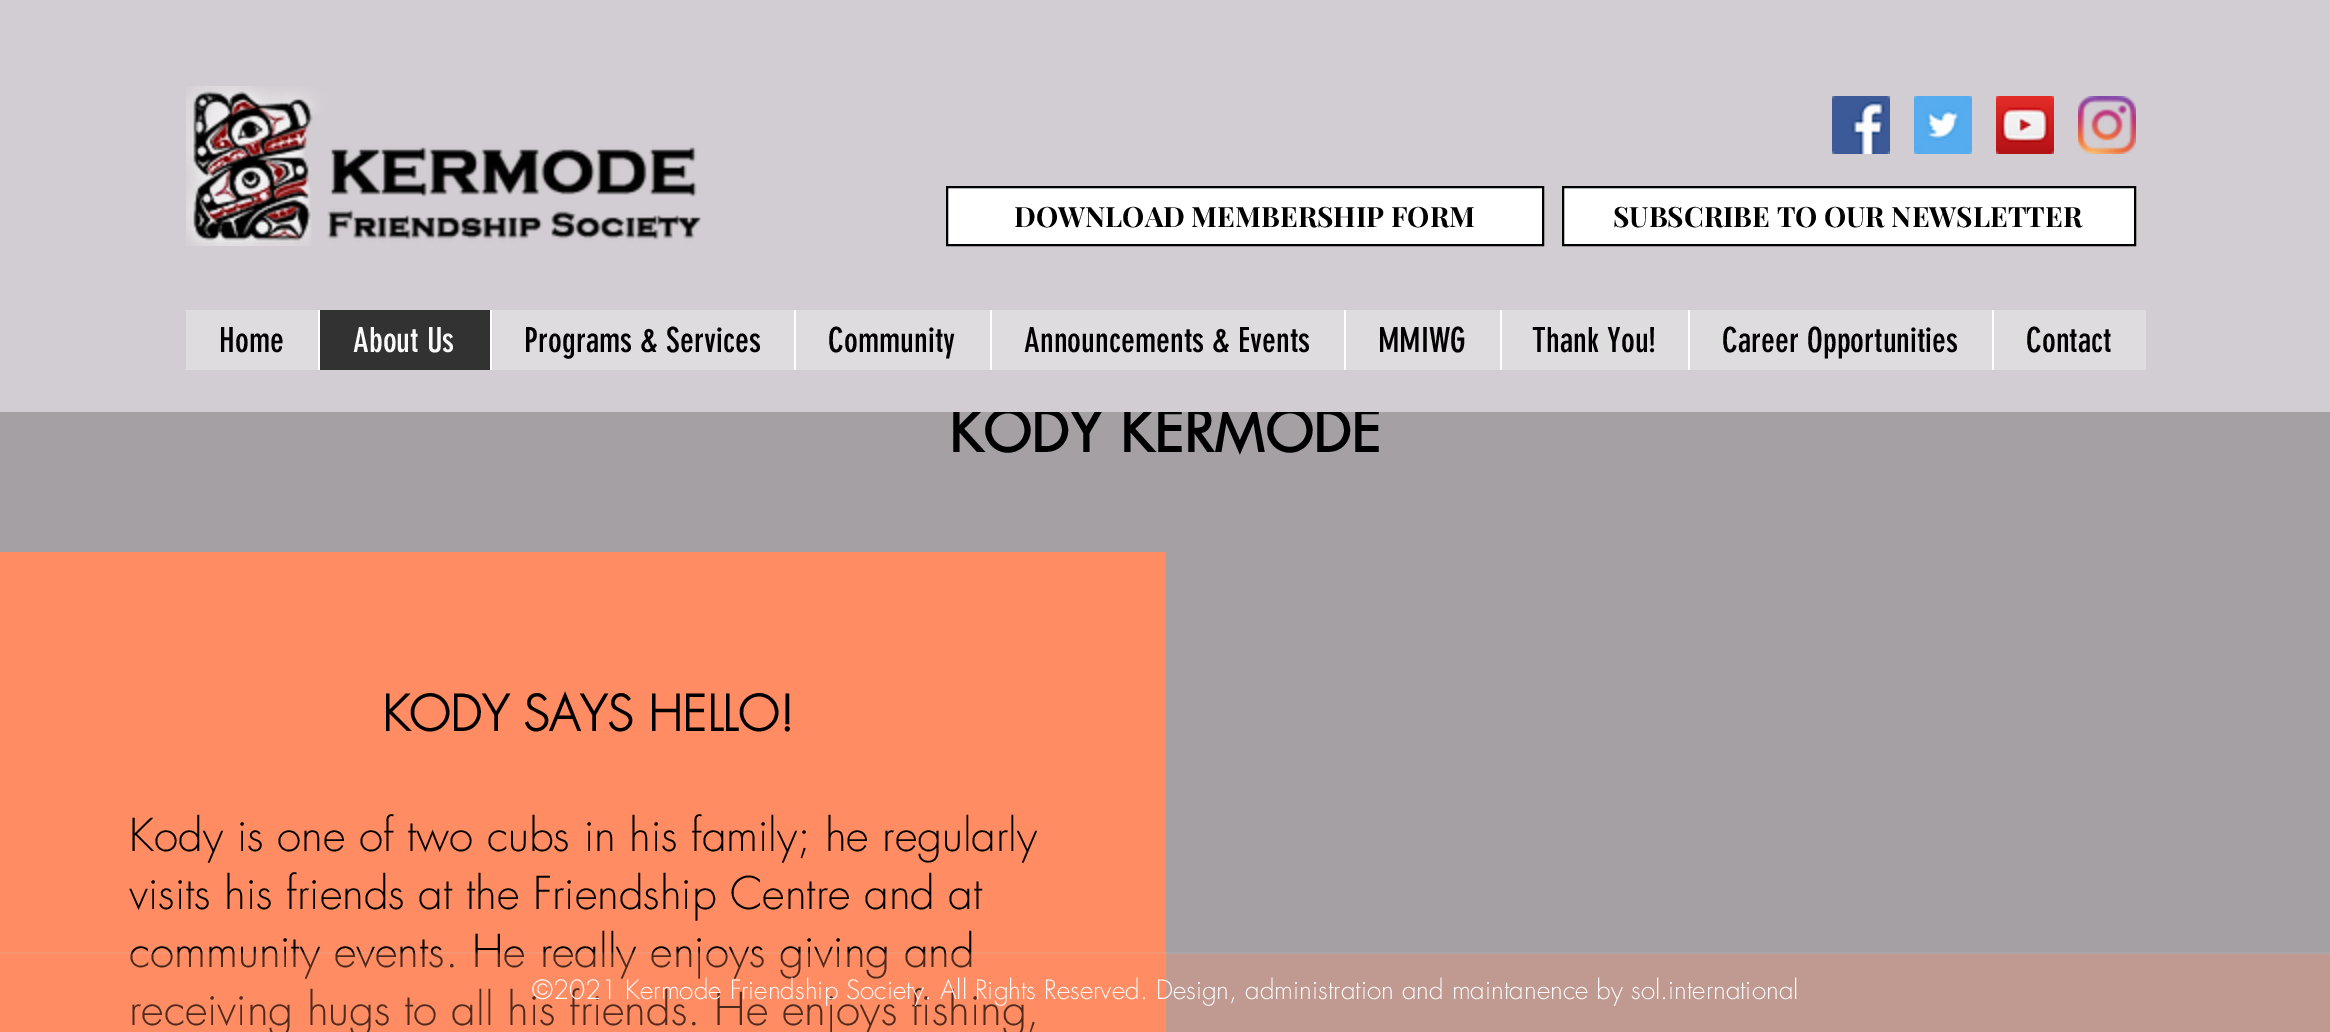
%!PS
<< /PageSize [2330 1032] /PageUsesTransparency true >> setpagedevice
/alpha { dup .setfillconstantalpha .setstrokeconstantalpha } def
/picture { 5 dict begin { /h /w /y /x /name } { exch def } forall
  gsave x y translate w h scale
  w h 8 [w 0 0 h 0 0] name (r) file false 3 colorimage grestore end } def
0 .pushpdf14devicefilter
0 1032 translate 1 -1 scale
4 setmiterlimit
0.643 0.627 0.643 setrgbcolor
0 0 2330 1032 rectfill
/futura-Bold [56 0 0 -56 0 0] selectfont
0 setgray
949 452 moveto (KODY KERMODE) show
0.824 0.804 0.824 setrgbcolor
0 0 2330 412 rectfill
(img1.rgb) 186 86 515 160 picture
(img2.rgb) 1832 96 58 58 picture
(img3.rgb) 1914 96 58 58 picture
(img4.rgb) 1996 96 58 58 picture
(img5.rgb) 2078 96 58 58 picture
1 setgray
newpath 947 187 moveto 1543 187 lineto 1543 245 lineto 947 245 lineto closepath gsave fill grestore
0 setgray
2 setlinewidth
stroke
/PlayfairDisplay-Bold [28 0 0 -28 0 0] selectfont
1014 227 moveto (DOWNLOAD MEMBERSHIP FORM) show
1 setgray
newpath 1563 187 moveto 2135 187 lineto 2135 245 lineto 1563 245 lineto closepath gsave fill grestore
0 setgray
stroke
1613 227 moveto (SUBSCRIBE TO OUR NEWSLETTER) show
0.875 0.863 0.875 setrgbcolor
186 310 1960 60 rectfill
/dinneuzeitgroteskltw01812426-Regular [34 0 0 -34 0 0] selectfont
0 setgray
219 352 moveto (Home) show
0.196 setgray
320 310 170 60 rectfill
1 setgray
318 310 2 60 rectfill
0.98 setgray
353 352 moveto (About Us) show
1 setgray
490 310 2 60 rectfill
0 setgray
524 352 moveto (Programs & Services) show
1 setgray
794 310 2 60 rectfill
0 setgray
828 352 moveto (Community) show
1 setgray
990 310 2 60 rectfill
0 setgray
1024 352 moveto (Announcements & Events) show
1 setgray
1344 310 2 60 rectfill
0 setgray
1378 352 moveto (MMIWG) show
1 setgray
1500 310 2 60 rectfill
0 setgray
1532 352 moveto (Thank You!) show
1 setgray
1688 310 2 60 rectfill
0 setgray
1722 352 moveto (Career Opportunities) show
1 setgray
1992 310 2 60 rectfill
0 setgray
2026 352 moveto (Contact) show
1 0.549 0.384 setrgbcolor
0 552 1166 480 rectfill
/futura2-Bold [48 0 0 -48 0 0] selectfont
0 setgray
382 731 moveto (KODY SAYS HELLO!) show
/futura-Light [44 0 0 -44 0 0] selectfont
129 851 moveto (Kody is one of two cubs in his family; he regularly) show
129 909 moveto (visits his friends at the Friendship Centre and at) show
129 967 moveto (community events. He really enjoys giving and) show
129 1025 moveto (receiving hugs to all his friends. He enjoys fishing,) show
0.15 alpha
0.824 0.804 0.824 setrgbcolor
0 952 2330 2 rectfill
0.31 alpha
1 0.549 0.384 setrgbcolor
129 954 2201 78 rectfill
/futura-Light [26 0 0 -26 0 0] selectfont
1 alpha
0.98 setgray
532 999 moveto (©2021 Kermode Friendship Society. All Rights Reserved. Design, administration and maintanence by sol.international) show
.poppdf14devicefilter showpage
